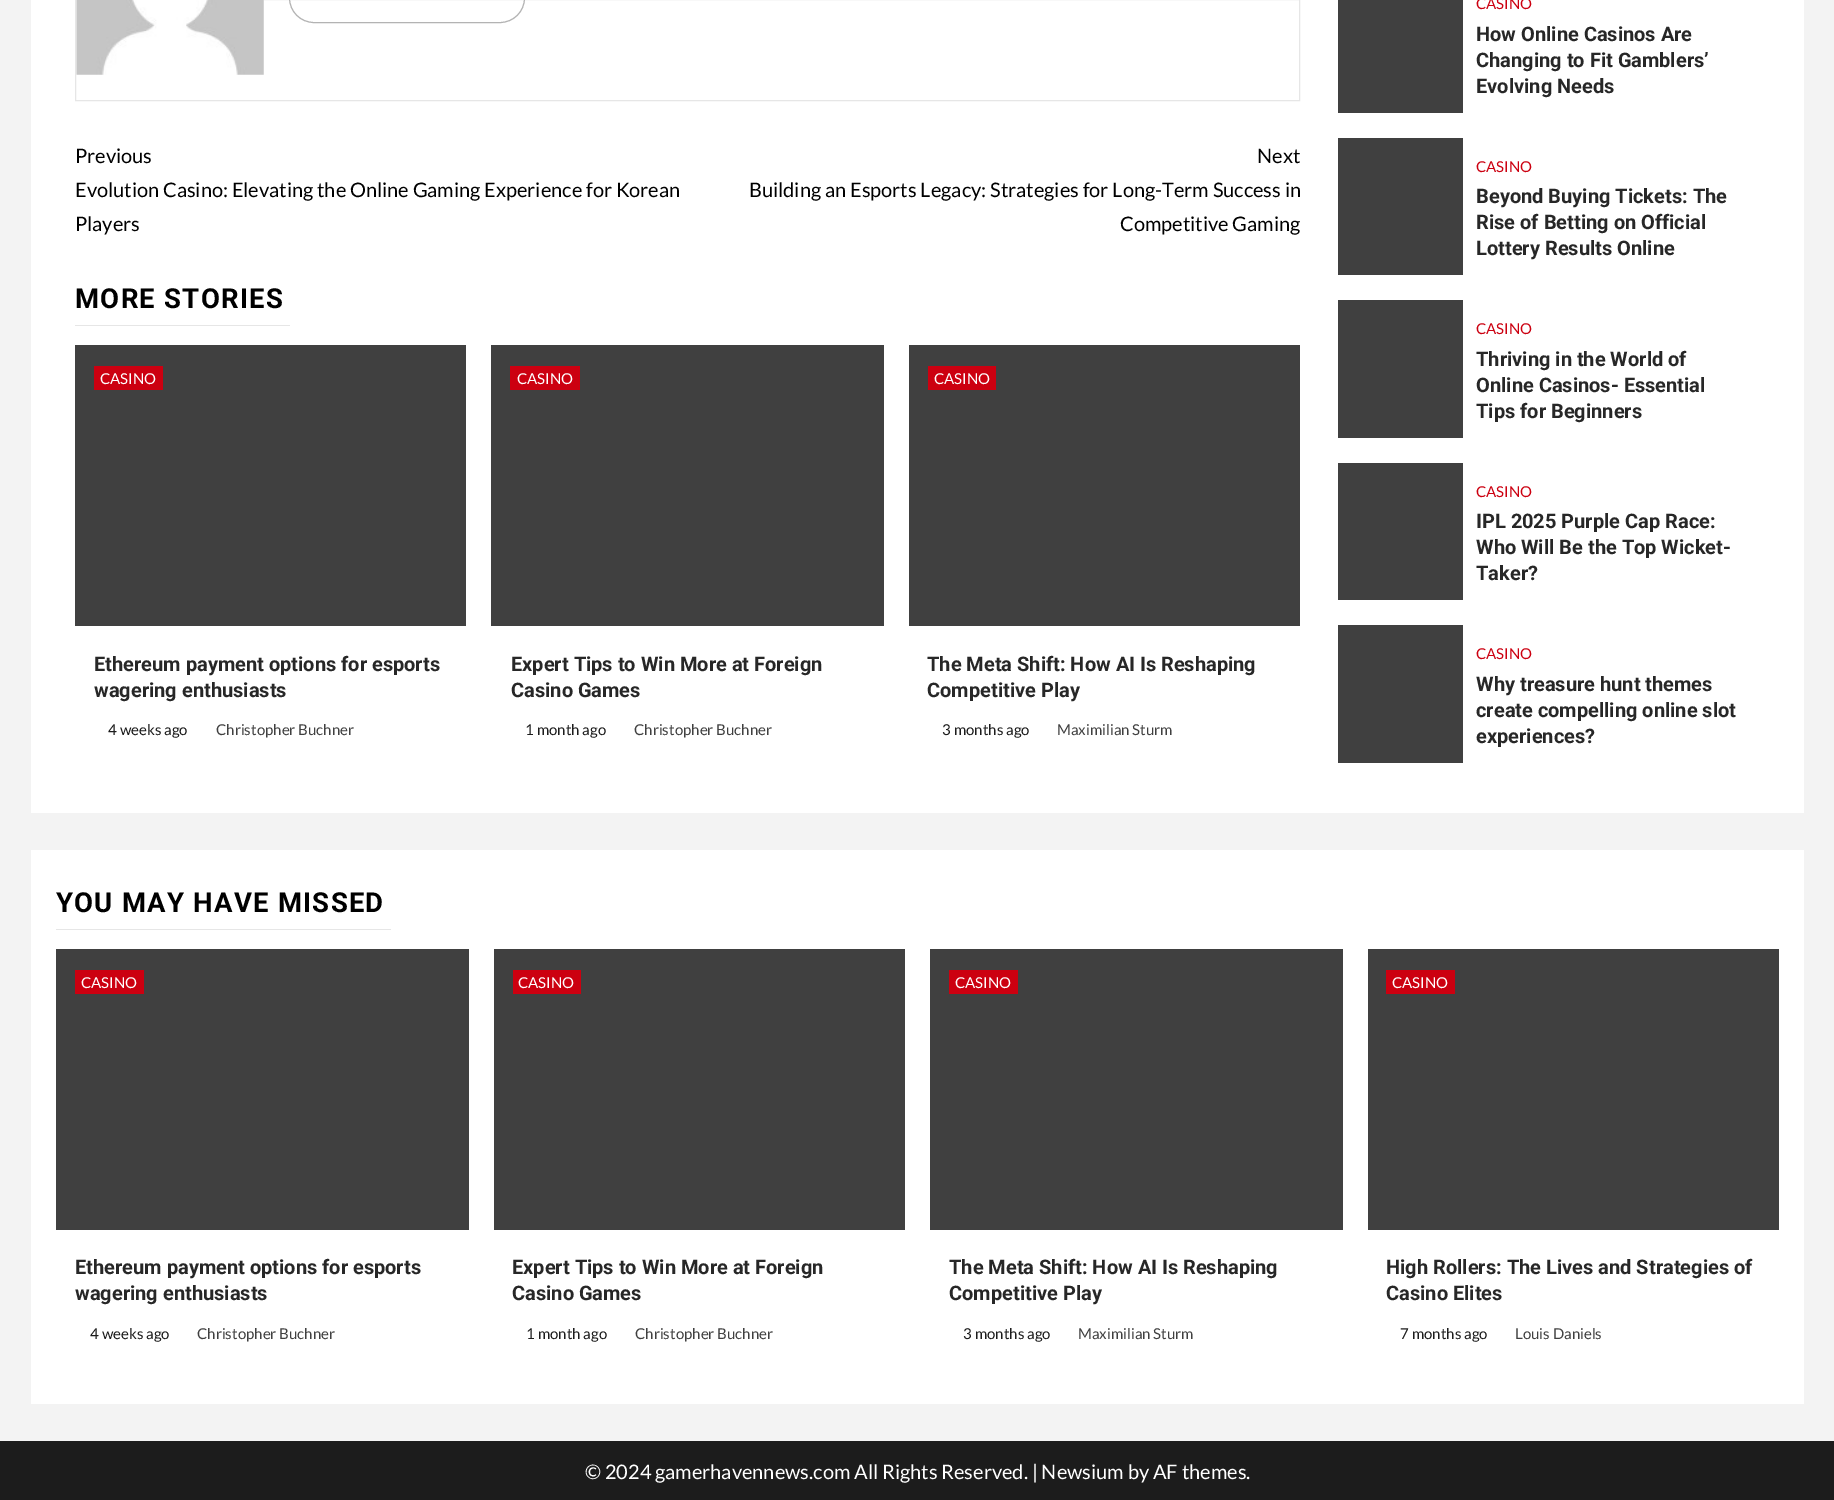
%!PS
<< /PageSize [1834 1500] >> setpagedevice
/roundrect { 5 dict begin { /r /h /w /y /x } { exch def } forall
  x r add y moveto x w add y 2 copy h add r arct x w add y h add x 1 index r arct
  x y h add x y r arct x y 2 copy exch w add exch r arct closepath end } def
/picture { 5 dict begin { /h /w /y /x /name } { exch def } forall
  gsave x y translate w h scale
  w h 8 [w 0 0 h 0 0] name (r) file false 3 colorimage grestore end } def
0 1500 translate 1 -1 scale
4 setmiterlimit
0.953 setgray
0 0 1834 1500 rectfill
1 setgray
31 0 1773 813 rectfill
0.902 setgray
75.5 -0.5 1224 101 rectstroke
(img1.rgb) 76 0 188 75 picture
0.702 setgray
289.5 -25.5 235 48 24.5 roundrect stroke
/Lato-Regular [20 0 0 -20 0 0] selectfont
0 setgray
75 163 moveto (Previous) show
75 197 moveto (Evolution Casino: Elevating the Online Gaming Experience for Korean) show
75 231 moveto (Players) show
1257 163 moveto (Next) show
749 197 moveto (Building an Esports Legacy: Strategies for Long-Term Success in) show
1120 231 moveto (Competitive Gaming) show
/Roboto-Bold [27.5 0 0 -27.5 0 0] selectfont
75 308 moveto 1.25 0 (MORE STORIES) ashow
0.902 setgray
75 325 215 1 rectfill
0.251 setgray
75 345 391 281 rectfill
0.8 0 0.063 setrgbcolor
94 366 69 24 rectfill
/Lato-Regular [15 0 0 -15 0 0] selectfont
1 setgray
100 384 moveto (CASINO) show
/Roboto-Bold [20 0 0 -20 0 0] selectfont
0.153 setgray
94 671 moveto (Ethereum payment options for esports) show
94 697 moveto (wagering enthusiasts) show
/Lato-Regular [15 0 0 -15 0 0] selectfont
0.11 setgray
108 735 moveto (4 weeks ago) show
0.251 setgray
216 735 moveto (Christopher Buchner) show
491 345 393 281 rectfill
0.8 0 0.063 setrgbcolor
510 366 70 24 rectfill
1 setgray
517 384 moveto (CASINO) show
/Roboto-Bold [20 0 0 -20 0 0] selectfont
0.153 setgray
511 671 moveto (Expert Tips to Win More at Foreign) show
511 697 moveto (Casino Games) show
/Lato-Regular [15 0 0 -15 0 0] selectfont
0.11 setgray
525 735 moveto (1 month ago) show
0.251 setgray
634 735 moveto (Christopher Buchner) show
909 345 391 281 rectfill
0.8 0 0.063 setrgbcolor
928 366 68 24 rectfill
1 setgray
934 384 moveto (CASINO) show
/Roboto-Bold [20 0 0 -20 0 0] selectfont
0.153 setgray
927 671 moveto (The Meta Shift: How AI Is Reshaping) show
927 697 moveto (Competitive Play) show
/Lato-Regular [15 0 0 -15 0 0] selectfont
0.11 setgray
942 735 moveto (3 months ago) show
0.251 setgray
1057 735 moveto (Maximilian Sturm) show
1338 0 125 113 rectfill
0.8 0 0.063 setrgbcolor
1476 9 moveto (CASINO) show
/Roboto-Bold [20 0 0 -20 0 0] selectfont
0.153 setgray
1476 41 moveto (How Online Casinos Are) show
1476 67 moveto (Changing to Fit Gamblers’) show
1476 93 moveto (Evolving Needs) show
0.251 setgray
1338 138 125 137 rectfill
/Lato-Regular [15 0 0 -15 0 0] selectfont
0.8 0 0.063 setrgbcolor
1476 172 moveto (CASINO) show
/Roboto-Bold [20 0 0 -20 0 0] selectfont
0.153 setgray
1476 203 moveto (Beyond Buying Tickets: The) show
1476 229 moveto (Rise of Betting on Official) show
1476 255 moveto (Lottery Results Online) show
0.251 setgray
1338 300 125 138 rectfill
/Lato-Regular [15 0 0 -15 0 0] selectfont
0.8 0 0.063 setrgbcolor
1476 334 moveto (CASINO) show
/Roboto-Bold [20 0 0 -20 0 0] selectfont
0.153 setgray
1476 366 moveto (Thriving in the World of) show
1476 392 moveto (Online Casinos- Essential) show
1476 418 moveto (Tips for Beginners) show
0.251 setgray
1338 463 125 137 rectfill
/Lato-Regular [15 0 0 -15 0 0] selectfont
0.8 0 0.063 setrgbcolor
1476 497 moveto (CASINO) show
/Roboto-Bold [20 0 0 -20 0 0] selectfont
0.153 setgray
1476 528 moveto (IPL 2025 Purple Cap Race:) show
1476 554 moveto (Who Will Be the Top Wicket-) show
1476 580 moveto (Taker?) show
0.251 setgray
1338 625 125 138 rectfill
/Lato-Regular [15 0 0 -15 0 0] selectfont
0.8 0 0.063 setrgbcolor
1476 659 moveto (CASINO) show
/Roboto-Bold [20 0 0 -20 0 0] selectfont
0.153 setgray
1476 691 moveto (Why treasure hunt themes) show
1476 717 moveto (create compelling online slot) show
1476 743 moveto (experiences?) show
1 setgray
31 850 1773 554 rectfill
/Roboto-Bold [27.5 0 0 -27.5 0 0] selectfont
0 setgray
56 912 moveto 1.25 0 (YOU MAY HAVE MISSED) ashow
0.902 setgray
56 929 335 1 rectfill
0.251 setgray
56 949 413 281 rectfill
0.8 0 0.063 setrgbcolor
75 970 69 24 rectfill
/Lato-Regular [15 0 0 -15 0 0] selectfont
1 setgray
81 988 moveto (CASINO) show
/Roboto-Bold [20 0 0 -20 0 0] selectfont
0.153 setgray
75 1274 moveto (Ethereum payment options for esports) show
75 1300 moveto (wagering enthusiasts) show
/Lato-Regular [15 0 0 -15 0 0] selectfont
0.11 setgray
90 1339 moveto (4 weeks ago) show
0.251 setgray
197 1339 moveto (Christopher Buchner) show
494 949 411 281 rectfill
0.8 0 0.063 setrgbcolor
513 970 68 24 rectfill
1 setgray
518 988 moveto (CASINO) show
/Roboto-Bold [20 0 0 -20 0 0] selectfont
0.153 setgray
512 1274 moveto (Expert Tips to Win More at Foreign) show
512 1300 moveto (Casino Games) show
/Lato-Regular [15 0 0 -15 0 0] selectfont
0.11 setgray
526 1339 moveto (1 month ago) show
0.251 setgray
635 1339 moveto (Christopher Buchner) show
930 949 413 281 rectfill
0.8 0 0.063 setrgbcolor
949 970 69 24 rectfill
1 setgray
955 988 moveto (CASINO) show
/Roboto-Bold [20 0 0 -20 0 0] selectfont
0.153 setgray
949 1274 moveto (The Meta Shift: How AI Is Reshaping) show
949 1300 moveto (Competitive Play) show
/Lato-Regular [15 0 0 -15 0 0] selectfont
0.11 setgray
963 1339 moveto (3 months ago) show
0.251 setgray
1078 1339 moveto (Maximilian Sturm) show
1368 949 411 281 rectfill
0.8 0 0.063 setrgbcolor
1386 970 69 24 rectfill
1 setgray
1392 988 moveto (CASINO) show
/Roboto-Bold [20 0 0 -20 0 0] selectfont
0.153 setgray
1386 1274 moveto (High Rollers: The Lives and Strategies of) show
1386 1300 moveto (Casino Elites) show
/Lato-Regular [15 0 0 -15 0 0] selectfont
0.11 setgray
1400 1339 moveto (7 months ago) show
0.251 setgray
1515 1339 moveto (Louis Daniels) show
0.11 setgray
0 1441 1834 59 rectfill
/Lato-Regular [20 0 0 -20 0 0] selectfont
1 setgray
585 1479 moveto (© 2024 gamerhavennews.com All Rights Reserved. | Newsium by AF themes.) show
showpage
